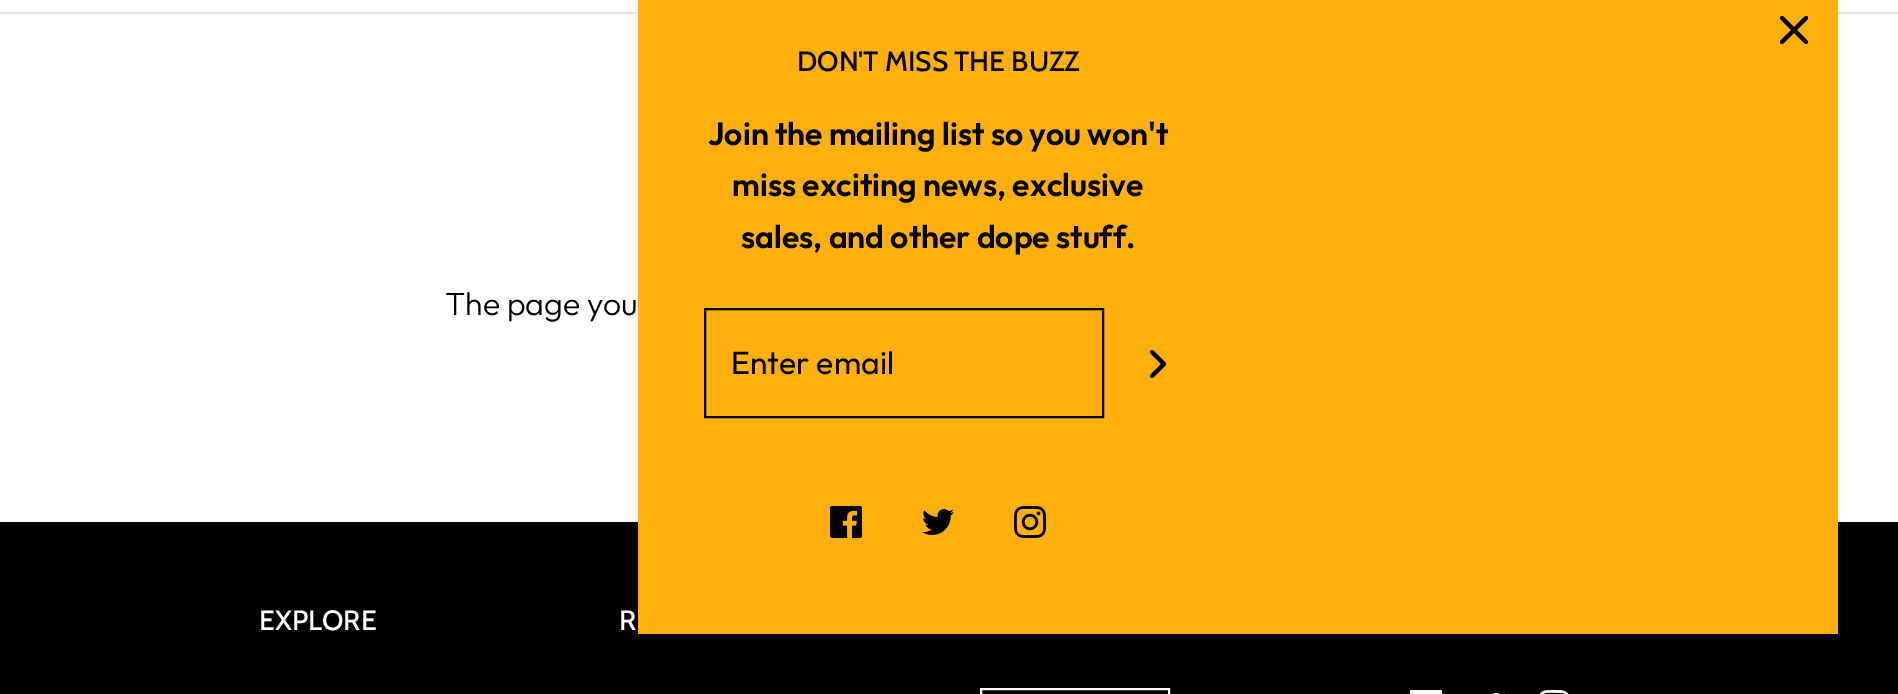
%!PS
<< /PageSize [1898 694] >> setpagedevice
/picture { 5 dict begin { /h /w /y /x /name } { exch def } forall
  gsave x y translate w h scale
  w h 8 [w 0 0 h 0 0] name (r) file false 3 colorimage grestore end } def
0 694 translate 1 -1 scale
4 setmiterlimit
1 setgray
0 0 1898 694 rectfill
0.902 setgray
0 12 1898 2 rectfill
0 setgray
0 522 1898 172 rectfill
1 0.69 0.055 setrgbcolor
638 0 1200 634 rectfill
0 setgray
4 setlinewidth
1 setlinecap
1 setlinejoin
newpath 1806 18 moveto 1782 42 lineto 1782 18 moveto 1806 42 lineto stroke
/Cabin-Medium [28 0 0 -28 0 0] selectfont
797 71 moveto (DON'T MISS THE BUZZ) show
/Outfit-SemiBold [32 0 0 -32 0 0] selectfont
708 145 moveto (Join the mailing list so you won't) show
732 196 moveto (miss exciting news, exclusive) show
741 248 moveto (sales, and other dope stuff.) show
2 setlinewidth
0 setlinecap
0 setlinejoin
705 309 398 108 rectstroke
/Outfit-Regular [32 0 0 -32 0 0] selectfont
731 374 moveto (Enter email) show
4 setlinewidth
1 setlinecap
1 setlinejoin
newpath 1152 376 moveto 1164 364 lineto 1152 352 lineto stroke
(img1.rgb) 830 506 32 32 picture
(img2.rgb) 922 509 32 26 picture
(img3.rgb) 1014 506 32 32 picture
/Outfit-Light [32 0 0 -32 0 0] selectfont
445 315 moveto (The page you) show
/Cabin-Medium [28 0 0 -28 0 0] selectfont
1 setgray
259 630 moveto (EXPLORE) show
619 630 moveto (R) show
2 setlinewidth
0 setlinecap
0 setlinejoin
981 689 188 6 rectstroke
1410 690 32 4 rectfill
(img4.rgb) 1492 693 13 1 picture
(img5.rgb) 1539 690 30 4 picture
showpage
